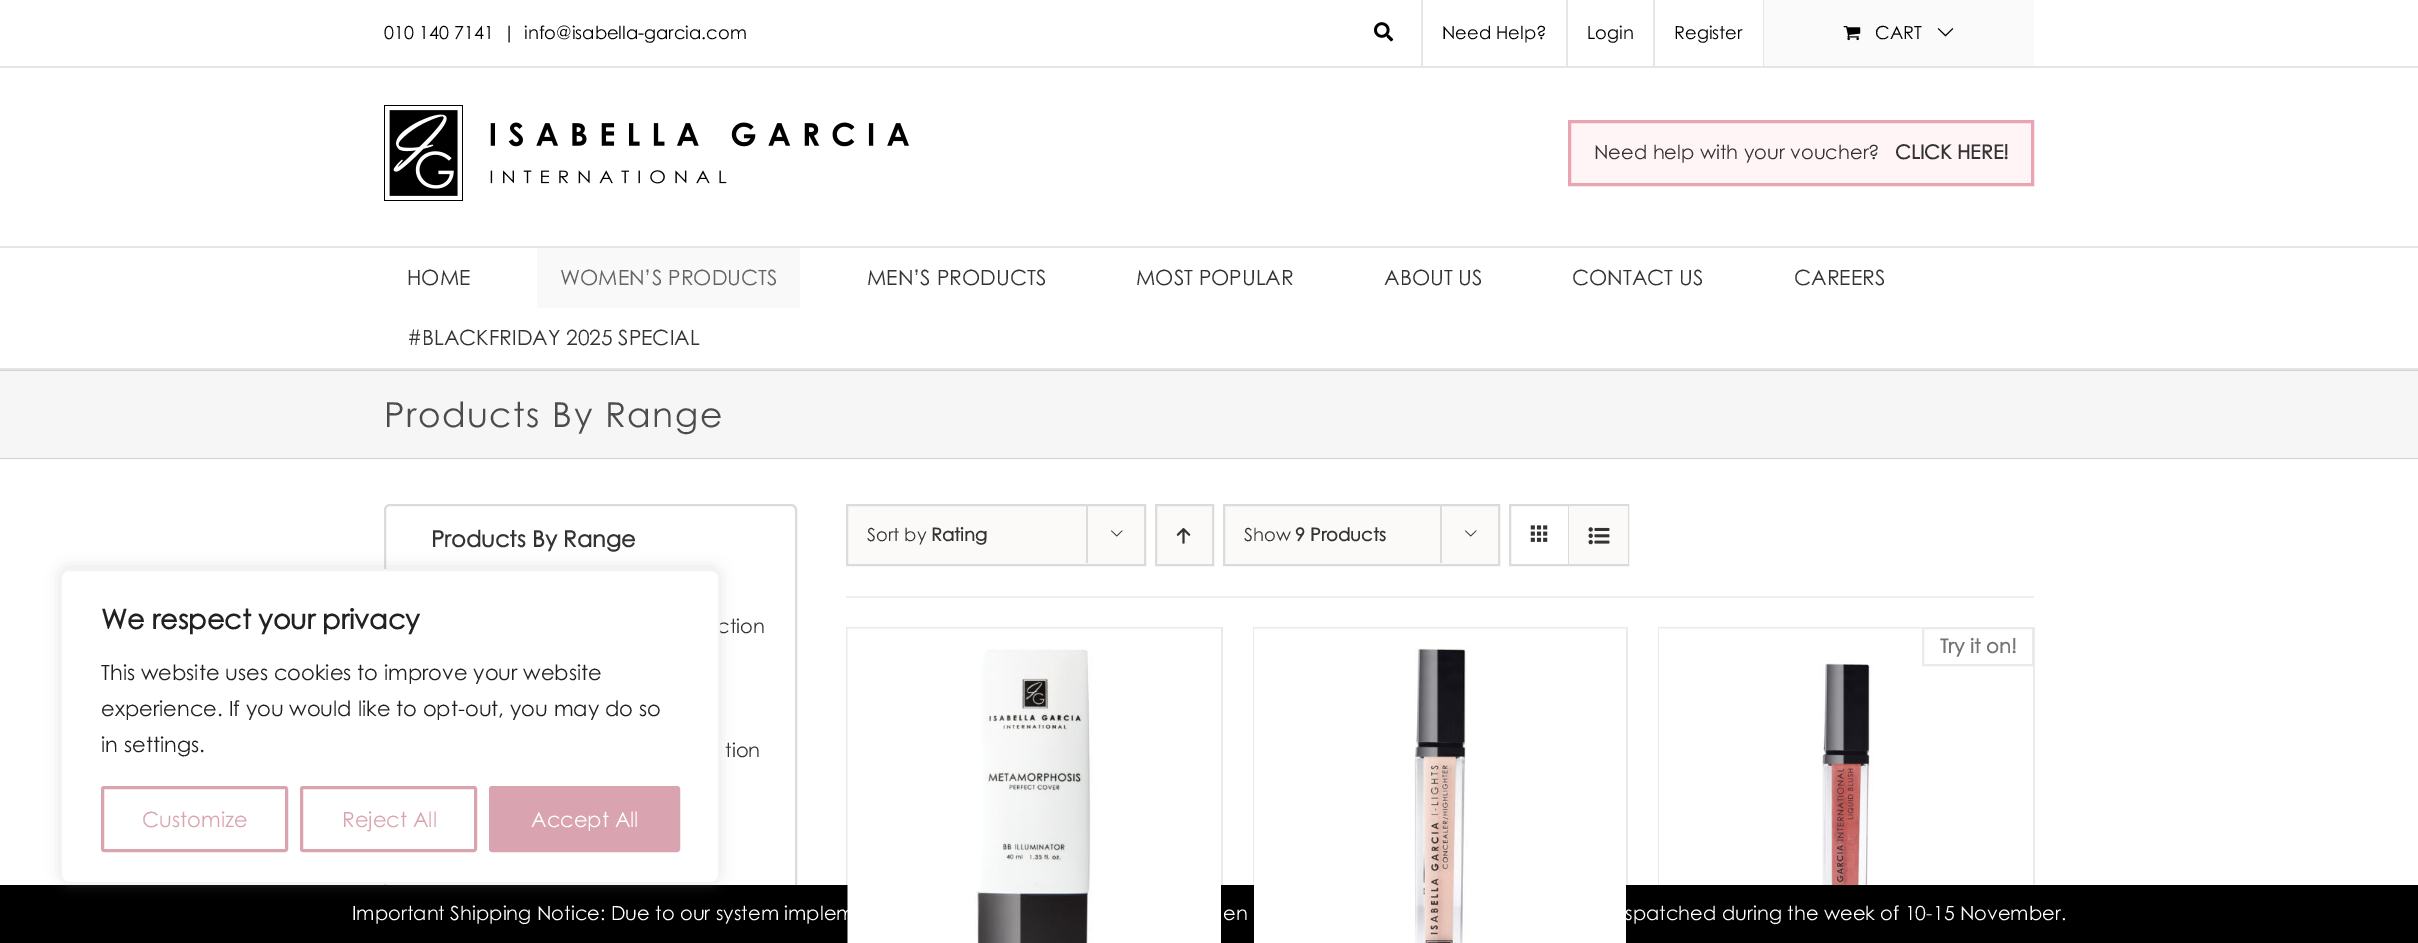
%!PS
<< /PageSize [2418 943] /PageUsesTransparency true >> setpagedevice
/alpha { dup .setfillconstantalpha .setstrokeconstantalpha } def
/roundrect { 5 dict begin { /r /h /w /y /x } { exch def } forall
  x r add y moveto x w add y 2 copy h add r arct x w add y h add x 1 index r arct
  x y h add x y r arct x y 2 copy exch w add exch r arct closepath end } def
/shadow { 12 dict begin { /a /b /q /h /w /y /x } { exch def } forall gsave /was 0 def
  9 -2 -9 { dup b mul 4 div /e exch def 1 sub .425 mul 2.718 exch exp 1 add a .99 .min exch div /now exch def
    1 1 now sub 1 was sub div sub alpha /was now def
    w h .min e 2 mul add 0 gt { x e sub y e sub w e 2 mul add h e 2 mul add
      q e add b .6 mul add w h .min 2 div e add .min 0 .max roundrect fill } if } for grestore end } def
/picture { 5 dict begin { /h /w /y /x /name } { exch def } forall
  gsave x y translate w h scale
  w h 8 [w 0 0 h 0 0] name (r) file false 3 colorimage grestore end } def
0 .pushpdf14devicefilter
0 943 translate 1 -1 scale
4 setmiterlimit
1 setgray
0 0 2418 943 rectfill
0.859 setgray
2 setlinewidth
385 505 411 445 5 roundrect stroke
0 setgray
0 885 2418 58 rectfill
0.675 0.671 0.671 setrgbcolor
60 567 660 315 9 7.5 0.3 shadow
/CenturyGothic-Regular [19.5 0 0 -19.5 0 0] selectfont
0.2 setgray
717 633 moveto (ction) show
1 setgray
61 570 658 313 8 roundrect gsave fill grestore
0.957 setgray
stroke
/CenturyGothic-Bold [27 0 0 -27 0 0] selectfont
0.129 setgray
101 629 moveto (We respect your privacy) show
/CenturyGothic-Regular [21 0 0 -21 0 0] selectfont
101 680 moveto (This website uses cookies to improve your website) show
101 716 moveto (experience. If you would like to opt-out, you may do so) show
101 752 moveto (in settings.) show
0.851 0.643 0.686 setrgbcolor
3 setlinewidth
102.5 787.5 184 63 1.5 roundrect stroke
142 827 moveto (Customize) show
301.5 787.5 174 63 1.5 roundrect stroke
342 827 moveto (Reject All) show
490.5 787.5 188 63 1.5 roundrect gsave fill grestore
stroke
1 setgray
531 827 moveto (Accept All) show
0.898 setgray
0 66 2418 2 rectfill
/CenturyGothic-Regular [18 0 0 -18 0 0] selectfont
0 setgray
384 39 moveto (010 140 7141) show
503 39 moveto (|) show
524 39 moveto (info@isabella-garcia.com) show
(img1.rgb) 1374 22 20 20 picture
0.898 setgray
1421 0 2 66 rectfill
0 setgray
1442 39 moveto (Need Help?) show
0.898 setgray
1566 0 2 66 rectfill
0 setgray
1587 39 moveto (Login) show
0.898 setgray
1653 0 2 66 rectfill
0 setgray
1674 39 moveto (Register) show
0.898 setgray
1763 0 1 66 rectfill
0.98 setgray
1764 0 270 66 rectfill
(img2.rgb) 1843 26 18 15 picture
0 setgray
1875 39 moveto (CART) show
(img3.rgb) 1937 28 17 9 picture
0.898 setgray
0 246 2418 2 rectfill
(img4.rgb) 384 105 525 96 picture
1 0.961 0.969 setrgbcolor
newpath 1569.5 121.5 moveto 2032.5 121.5 lineto 2032.5 184.5 lineto 1569.5 184.5 lineto closepath gsave fill grestore
0.91 0.647 0.694 setrgbcolor
stroke
/CenturyGothic-Regular [19.5 0 0 -19.5 0 0] selectfont
0.2 setgray
1594 159 moveto (Need help with your voucher?) show
/CenturyGothic-Bold [19.5 0 0 -19.5 0 0] selectfont
1895 159 moveto (CLICK HERE!) show
0.898 setgray
0 368 2418 2 rectfill
/CenturyGothic-Regular [21 0 0 -21 0 0] selectfont
0.2 setgray
407 285 moveto (HOME) show
0.976 setgray
537 248 263 60 rectfill
0.388 setgray
560 285 moveto (WOMEN’S PRODUCTS) show
0.2 setgray
867 285 moveto (MEN’S PRODUCTS) show
1136 285 moveto (MOST POPULAR) show
1384 285 moveto (ABOUT US) show
1572 285 moveto (CONTACT US) show
1794 285 moveto (CAREERS) show
407 345 moveto (#BLACKFRIDAY 2025 SPECIAL) show
0.965 setgray
0 371 2418 87 rectfill
0.824 0.827 0.831 setrgbcolor
0 370 2418 1 rectfill
0 458 2418 1 rectfill
/CenturyGothic-Regular [34.5 0 0 -34.5 0 0] selectfont
0.302 0.298 0.302 setrgbcolor
384 427 moveto 1.5 0 (Products By Range) ashow
/CenturyGothic-Bold [22.5 0 0 -22.5 0 0] selectfont
0.2 setgray
431 547 moveto (Products By Range) show
/CenturyGothic-Regular [19.5 0 0 -19.5 0 0] selectfont
725 757 moveto (tion) show
0.933 setgray
846 596 1188 2 rectfill
0.984 0.98 0.976 setrgbcolor
newpath 847 505 moveto 1145 505 lineto 1145 565 lineto 847 565 lineto closepath gsave fill grestore
0.859 setgray
2 setlinewidth
stroke
/CenturyGothic-Regular [18 0 0 -18 0 0] selectfont
0.2 setgray
867 541 moveto (Sort by) show
/CenturyGothic-Bold [18 0 0 -18 0 0] selectfont
931 541 moveto (Rating) show
0.859 setgray
1086 504 2 59 rectfill
(img5.rgb) 1111 530 12 7 picture
0.984 0.98 0.976 setrgbcolor
newpath 1156 505 moveto 1213 505 lineto 1213 565 lineto 1156 565 lineto closepath gsave fill grestore
0.859 setgray
stroke
(img6.rgb) 1176 528 15 16 picture
0.984 0.98 0.976 setrgbcolor
newpath 1224 505 moveto 1499 505 lineto 1499 565 lineto 1224 565 lineto closepath gsave fill grestore
0.859 setgray
stroke
/CenturyGothic-Regular [18 0 0 -18 0 0] selectfont
0.2 setgray
1244 541 moveto (Show) show
/CenturyGothic-Bold [18 0 0 -18 0 0] selectfont
1295 541 moveto (9 Products) show
0.859 setgray
1440 504 2 59 rectfill
(img5.rgb) 1465 530 12 7 picture
1510 505 118 60 rectstroke
1568 506 1 58 rectfill
(img7.rgb) 1530 525 18 17 picture
0.984 0.98 0.976 setrgbcolor
1569 506 59 58 rectfill
(img8.rgb) 1588 527 22 18 picture
0.922 0.918 0.918 setrgbcolor
846 627 377 2 rectfill
1221 627 2 258 rectfill
846 627 2 258 rectfill
/CenturyGothic-Regular [19.5 0 0 -19.5 0 0] selectfont
1 setgray
352 920 moveto (Important Shipping Notice: Due to our system implem) show
(img9.rgb) 847 628 374 315 picture
0.922 0.918 0.918 setrgbcolor
1253 627 375 2 rectfill
1626 627 2 258 rectfill
1253 627 2 258 rectfill
1 setgray
1625 920 moveto (spatched during the week of 10-15 November.) show
(img10.rgb) 1254 628 372 315 picture
0.922 0.918 0.918 setrgbcolor
1658 627 264 2 rectfill
2033 627 2 258 rectfill
1658 627 2 258 rectfill
(img11.rgb) 1659 628 374 257 picture
1923 628 110 37 rectstroke
/CenturyGothic-Bold [19.5 0 0 -19.5 0 0] selectfont
0.455 setgray
1940 653 moveto (Try it on!) show
/CenturyGothic-Regular [19.5 0 0 -19.5 0 0] selectfont
1 setgray
1223 920 moveto (en) show
.poppdf14devicefilter showpage
